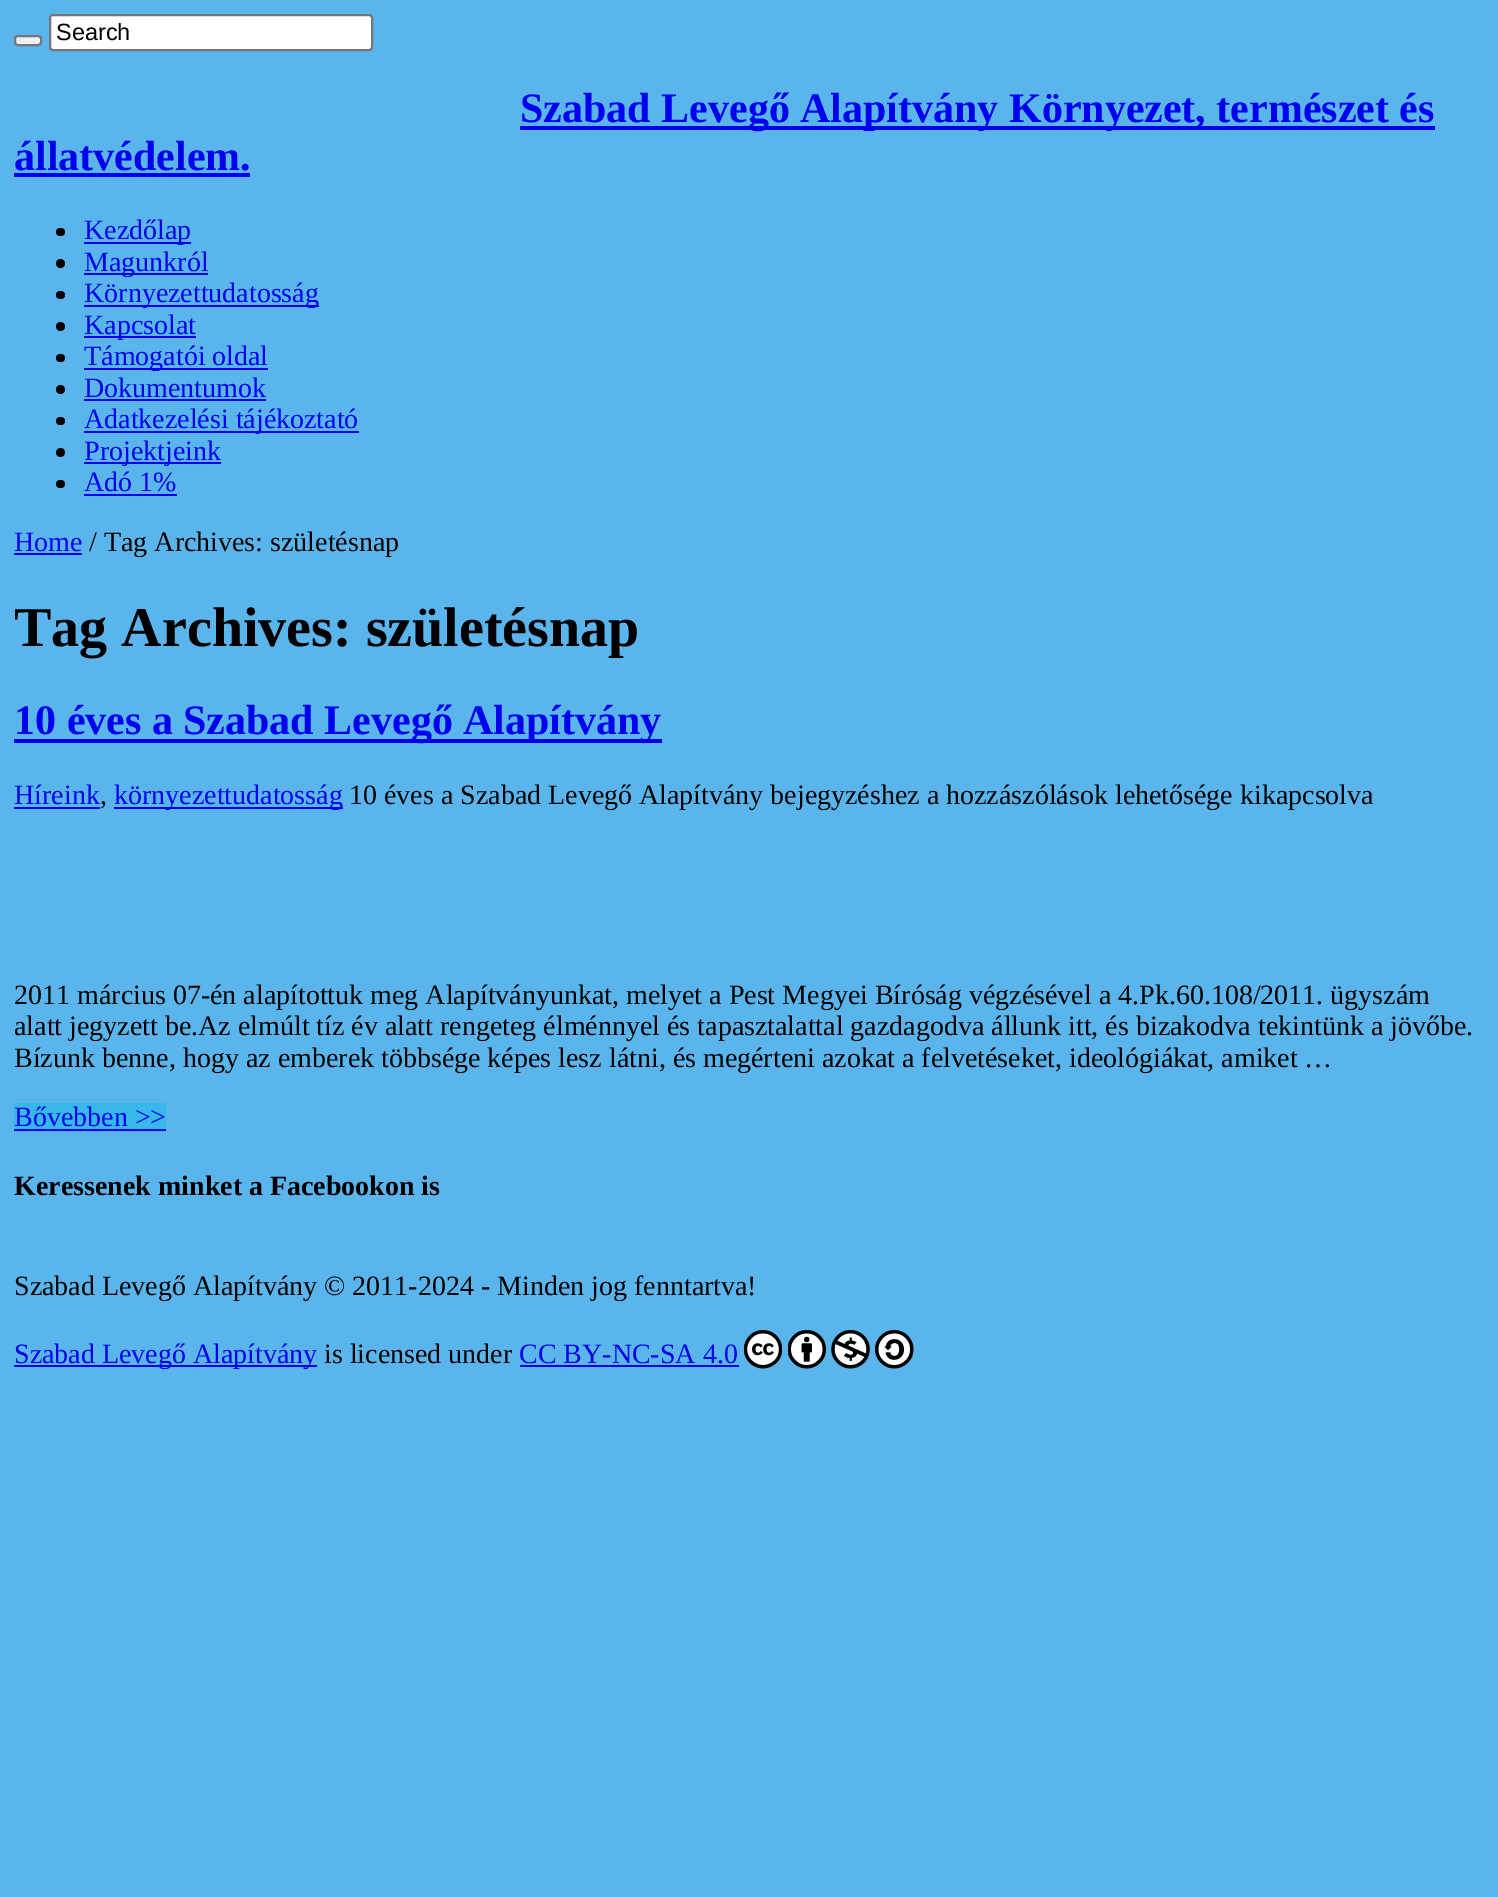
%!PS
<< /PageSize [1498 1897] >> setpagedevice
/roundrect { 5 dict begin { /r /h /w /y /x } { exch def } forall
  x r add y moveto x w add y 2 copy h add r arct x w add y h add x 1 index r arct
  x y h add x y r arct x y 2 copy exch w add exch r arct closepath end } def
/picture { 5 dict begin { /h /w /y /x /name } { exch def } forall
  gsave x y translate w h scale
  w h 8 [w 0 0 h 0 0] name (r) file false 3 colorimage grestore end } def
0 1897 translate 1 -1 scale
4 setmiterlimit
0.353 0.71 0.929 setrgbcolor
0 0 1498 1897 rectfill
0.937 setgray
15 36 26 9 3 roundrect gsave fill grestore
0.463 setgray
2 setlinewidth
stroke
1 setgray
50 15 322 35 3 roundrect gsave fill grestore
0.463 setgray
stroke
/LiberationSans-Regular [23.5 0 0 -23.5 0 0] selectfont
0 setgray
56 40 moveto (Search) show
0 0 0.933 setrgbcolor
520 126 915 4 rectfill
/LiberationSerif-Bold [42 0 0 -42 0 0] selectfont
520 122 moveto (Szabad Levegő Alapítvány Környezet, természet és) show
14 170 moveto (állatvédelem.) show
14 173 236 4 rectfill
0 setgray
56 228 9 8 4 roundrect fill
0 0 0.933 setrgbcolor
84 242 107 2 rectfill
/LiberationSerif-Regular [28 0 0 -28 0 0] selectfont
84 239 moveto (Kezdőlap) show
0 setgray
newpath 60.5 263.5 4.5 0 360 arc closepath fill
0 0 0.933 setrgbcolor
84 273 124 2 rectfill
84 271 moveto (Magunkról) show
0 setgray
56 291 9 8 4 roundrect fill
0 0 0.933 setrgbcolor
84 305 235 2 rectfill
84 302 moveto (Környezettudatosság) show
0 setgray
newpath 60.5 326.5 4.5 0 360 arc closepath fill
0 0 0.933 setrgbcolor
84 336 112 2 rectfill
84 334 moveto (Kapcsolat) show
0 setgray
56 354 9 8 4 roundrect fill
0 0 0.933 setrgbcolor
84 368 184 2 rectfill
84 365 moveto (Támogatói oldal) show
0 setgray
newpath 60.5 389.5 4.5 0 360 arc closepath fill
0 0 0.933 setrgbcolor
84 397 moveto (Dokumentumok) show
84 399 182 2 rectfill
0 setgray
56 417 9 8 4 roundrect fill
0 0 0.933 setrgbcolor
84 431 275 2 rectfill
84 428 moveto (Adatkezelési tájékoztató) show
0 setgray
newpath 60.5 452.5 4.5 0 360 arc closepath fill
0 0 0.933 setrgbcolor
84 462 137 2 rectfill
84 460 moveto (Projektjeink) show
0 setgray
56 480 9 8 4 roundrect fill
0 0 0.933 setrgbcolor
84 491 moveto (Adó 1%) show
84 494 93 2 rectfill
14 551 moveto (Home) show
14 553 68 2 rectfill
0 setgray
89 551 moveto (/ Tag Archives: születésnap) show
/LiberationSerif-Bold [56 0 0 -56 0 0] selectfont
14 646 moveto (Tag Archives: születésnap) show
0 0 0.933 setrgbcolor
14 739 648 4 rectfill
/LiberationSerif-Bold [42 0 0 -42 0 0] selectfont
14 734 moveto (10 éves a Szabad Levegő Alapítvány) show
/LiberationSerif-Regular [28 0 0 -28 0 0] selectfont
14 804 moveto (Híreink) show
0 setgray
100 804 moveto (,) show
0 0 0.933 setrgbcolor
14 807 86 2 rectfill
114 807 229 2 rectfill
114 804 moveto (környezettudatosság) show
0 setgray
349 804 moveto (10 éves a Szabad Levegő Alapítvány bejegyzéshez a hozzászólások lehetősége kikapcsolva) show
14 1004 moveto (2011 március 07-én alapítottuk meg Alapítványunkat, melyet a Pest Megyei Bíróság végzésével a 4.Pk.60.108/2011. ügyszám) show
14 1035 moveto (alatt jegyzett be.Az elmúlt tíz év alatt rengeteg élménnyel és tapasztalattal gazdagodva állunk itt, és bizakodva tekintünk a jövőbe.) show
14 1067 moveto (Bízunk benne, hogy az emberek többsége képes lesz látni, és megérteni azokat a felvetéseket, ideológiákat, amiket …) show
0.216 0.722 0.922 setrgbcolor
14 1103 152 29 rectfill
0 0 0.933 setrgbcolor
14 1126 moveto (Bővebben >>) show
14 1129 152 2 rectfill
/LiberationSerif-Bold [28 0 0 -28 0 0] selectfont
0 setgray
14 1195 moveto (Keressenek minket a Facebookon is) show
/LiberationSerif-Regular [28 0 0 -28 0 0] selectfont
14 1295 moveto (Szabad Levegő Alapítvány © 2011-2024 - Minden jog fenntartva!) show
0 0 0.933 setrgbcolor
14 1365 303 2 rectfill
14 1363 moveto (Szabad Levegő Alapítvány) show
0 setgray
324 1363 moveto (is licensed under) show
0 0 0.933 setrgbcolor
519 1363 moveto (CC BY-NC-SA 4.0) show
520 1365 219 2 rectfill
(img1.rgb) 744 1330 38 39 picture
(img2.rgb) 788 1330 38 39 picture
(img3.rgb) 831 1330 39 39 picture
(img4.rgb) 875 1330 39 39 picture
showpage
